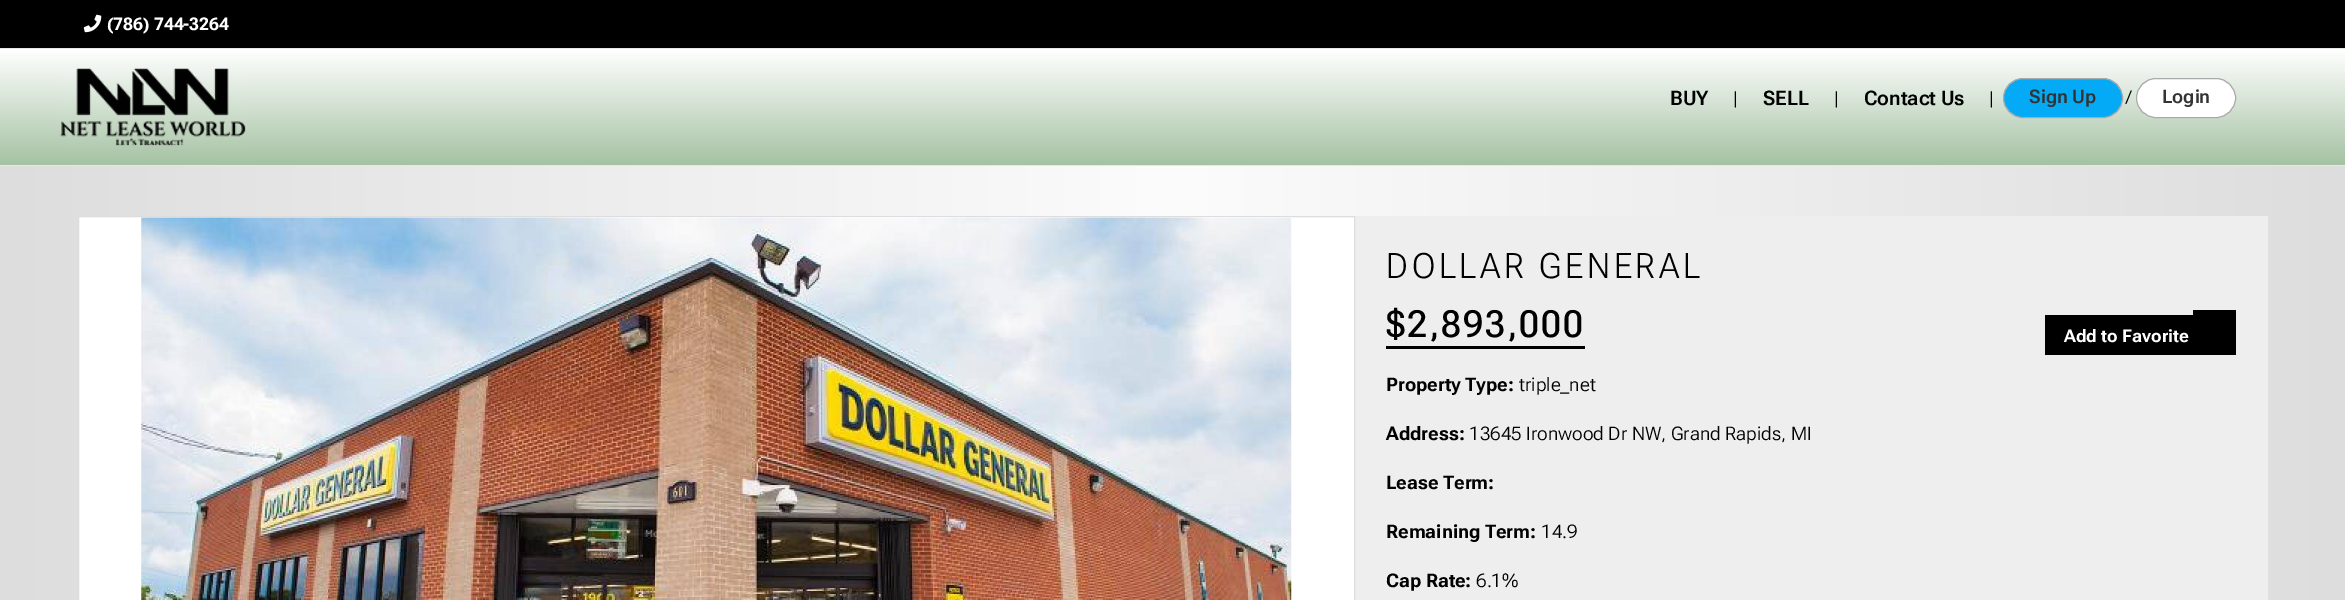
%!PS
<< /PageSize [2345 600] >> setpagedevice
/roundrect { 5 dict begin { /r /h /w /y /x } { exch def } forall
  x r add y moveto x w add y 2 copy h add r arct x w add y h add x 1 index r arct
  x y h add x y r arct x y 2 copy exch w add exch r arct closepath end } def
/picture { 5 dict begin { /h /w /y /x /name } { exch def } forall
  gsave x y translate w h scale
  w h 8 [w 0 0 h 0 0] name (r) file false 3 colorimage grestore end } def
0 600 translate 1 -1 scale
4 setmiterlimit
0 setgray
0 0 2345 600 rectfill
(img1.rgb) 83 14 19 19 picture
/RobotoFlex-Bold [17.5 0 0 -17.5 0 0] selectfont
1 setgray
107 30 moveto (\(786\) 744-3264) show
gsave newpath 0 49 moveto 2345 49 lineto 2345 165 lineto 0 165 lineto closepath clip newpath
<< /ShadingType 2 /ColorSpace /DeviceRGB /Coords [1173 49 1173 165] /Extend [true true] /Function << /FunctionType 2 /Domain [0 1] /C0 [1 1 1] /C1 [0.647 0.761 0.639] /N 1 >> >> shfill grestore
0.906 setgray
0 48 2345 1 rectfill
0 165 2345 1 rectfill
(img2.rgb) 60 68 186 78 picture
/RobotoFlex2-SemiBold [20 0 0 -20 0 0] selectfont
0 setgray
1670 105 moveto (BUY) show
/RobotoFlex-Light [17.5 0 0 -17.5 0 0] selectfont
1733 104 moveto (|) show
/RobotoFlex2-SemiBold [20 0 0 -20 0 0] selectfont
1763 105 moveto (SELL) show
/RobotoFlex-Light [17.5 0 0 -17.5 0 0] selectfont
1834 104 moveto (|) show
/RobotoFlex2-SemiBold [20 0 0 -20 0 0] selectfont
1864 105 moveto (Contact Us) show
/RobotoFlex-Light [17.5 0 0 -17.5 0 0] selectfont
1989 104 moveto (|) show
0.016 0.667 0.961 setrgbcolor
2003.5 78.5 119 39 19.5 roundrect gsave fill grestore
0.667 setgray
stroke
/RobotoFlex-SemiBold [18.75 0 0 -18.75 0 0] selectfont
0.2 setgray
2029 103 moveto (Sign Up) show
/RobotoFlex-Light [17.5 0 0 -17.5 0 0] selectfont
0 setgray
2126 103 moveto (/) show
1 setgray
2136.5 78.5 99 39 19.5 roundrect gsave fill grestore
0.667 setgray
stroke
/RobotoFlex-SemiBold [18.75 0 0 -18.75 0 0] selectfont
0.2 setgray
2162 103 moveto (Login) show
gsave newpath 0 166 moveto 2345 166 lineto 2345 600 lineto 0 600 lineto closepath clip newpath
<< /ShadingType 2 /ColorSpace /DeviceRGB /Coords [0 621 2345 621] /Extend [true true] /Function << /FunctionType 3 /Domain [0 1] /Functions [<< /FunctionType 2 /Domain [0 1] /C0 [0.867 0.867 0.867] /C1 [0.988 0.988 0.988] /N 1 >> << /FunctionType 2 /Domain [0 1] /C0 [0.988 0.988 0.988] /C1 [0.867 0.867 0.867] /N 1 >>] /Bounds [0.5] /Encode [0 1 0 1] >> >> shfill grestore
0.933 setgray
1355 216 913 384 rectfill
1 setgray
newpath 78.5 216.5 moveto 1354.5 216.5 lineto 1354.5 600.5 lineto 78.5 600.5 lineto closepath gsave fill grestore
0.867 setgray
stroke
(img3.rgb) 141 217 1151 383 picture
/RobotoFlex2-Light [35 0 0 -35 0 0] selectfont
0 setgray
1386 278 moveto 3.75 0 (DOLLAR GENERAL) ashow
/RobotoFlex-Medium [37.5 0 0 -37.5 0 0] selectfont
1386 337 moveto 1.9 0 ($2,893,000) ashow
1386 346 199 3 rectfill
2045 315 148 40 rectfill
/RobotoFlex-Bold [17.5 0 0 -17.5 0 0] selectfont
1 setgray
2064 342 moveto (Add to Favorite) show
0 setgray
2193 310 43 45 rectfill
/RobotoFlex-Bold [18.75 0 0 -18.75 0 0] selectfont
1386 391 moveto (Property Type:) show
/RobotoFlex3-Light [18.75 0 0 -18.75 0 0] selectfont
1519 391 moveto (triple_net) show
/RobotoFlex-Bold [18.75 0 0 -18.75 0 0] selectfont
1386 440 moveto (Address:) show
/RobotoFlex3-Light [18.75 0 0 -18.75 0 0] selectfont
1469 440 moveto (13645 Ironwood Dr NW, Grand Rapids, MI) show
/RobotoFlex-Bold [18.75 0 0 -18.75 0 0] selectfont
1386 489 moveto (Lease Term:) show
1386 538 moveto (Remaining Term:) show
/RobotoFlex3-Light [18.75 0 0 -18.75 0 0] selectfont
1541 538 moveto (14.9) show
/RobotoFlex-Bold [18.75 0 0 -18.75 0 0] selectfont
1386 587 moveto (Cap Rate:) show
/RobotoFlex3-Light [18.75 0 0 -18.75 0 0] selectfont
1476 587 moveto (6.1%) show
showpage
